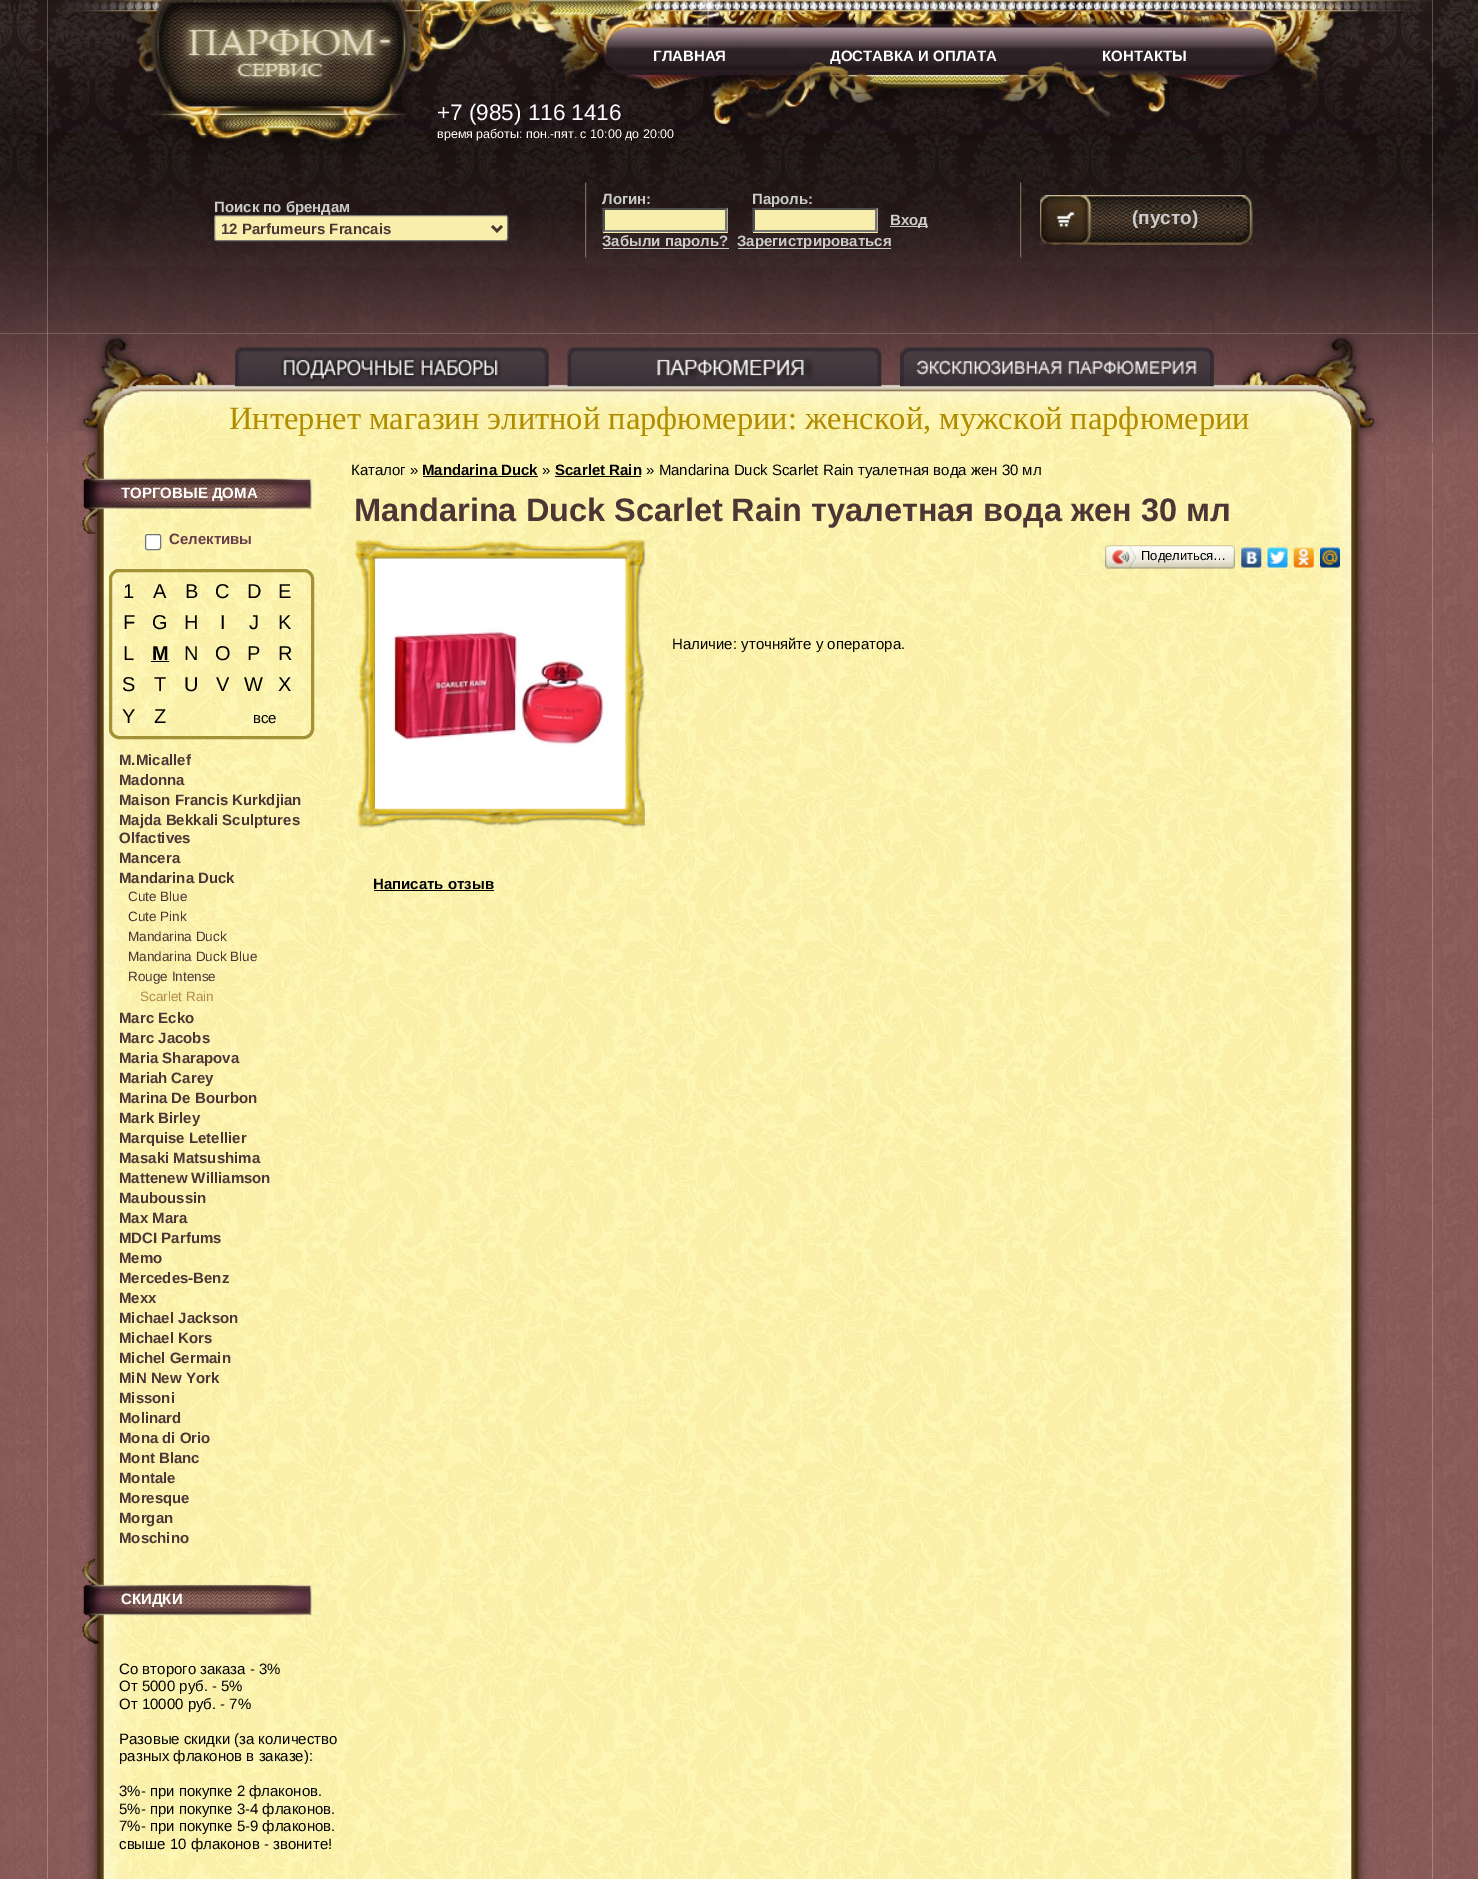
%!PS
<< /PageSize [1478 1879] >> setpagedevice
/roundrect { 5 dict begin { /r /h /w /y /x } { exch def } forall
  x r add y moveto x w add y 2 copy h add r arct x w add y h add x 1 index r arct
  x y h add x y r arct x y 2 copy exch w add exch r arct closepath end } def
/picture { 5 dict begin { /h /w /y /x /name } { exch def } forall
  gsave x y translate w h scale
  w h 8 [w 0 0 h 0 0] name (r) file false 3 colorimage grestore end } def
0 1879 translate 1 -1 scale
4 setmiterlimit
1 setgray
0 0 1478 1879 rectfill
(img1.rgb) 0 0 48 334 picture
(img2.rgb) 47 0 1386 334 picture
(img3.rgb) 151 0 261 107 picture
/LiberationSans-Bold [15 0 0 -15 0 0] selectfont
653 61 moveto (ГЛАВНАЯ) show
830 61 moveto (ДОСТАВКА И ОПЛАТА) show
1102 61 moveto (КОНТАКТЫ) show
/LiberationSans-Regular [22.5 0 0 -22.5 0 0] selectfont
437 120 moveto (+7 \(985\) 116 1416) show
/LiberationSans-Regular [12.5 0 0 -12.5 0 0] selectfont
437 138 moveto (время работы: пон.-пят. с 10:00 до 20:00) show
0.973 0.937 0.675 setrgbcolor
214.5 215.5 293 25 2 roundrect gsave fill grestore
0.463 setgray
stroke
/LiberationSans-Bold [15 0 0 -15 0 0] selectfont
0.8 setgray
214 212 moveto (Поиск по брендам) show
0.302 0.208 0.208 setrgbcolor
2.5 setlinewidth
newpath 492 226 moveto 497 231 lineto 502 226 lineto stroke
221 234 moveto (12 Parfumeurs Francais) show
(img4.rgb) 585 182 2 76 picture
0.8 setgray
602 204 moveto (Логин:) show
0.973 0.937 0.675 setrgbcolor
603 208 125 25 rectfill
0.31 setgray
newpath 602 208 moveto 728 208 lineto 725 210 lineto 605 210 lineto closepath fill
0.463 setgray
newpath 727.5 207.5 moveto 727.5 232.5 lineto 725 230 lineto 725 210 lineto closepath fill
newpath 728 232 moveto 602 232 lineto 605 230 lineto 725 230 lineto closepath fill
0.31 setgray
newpath 602.5 232.5 moveto 602.5 207.5 lineto 605 210 lineto 605 230 lineto closepath fill
0.8 setgray
752 204 moveto (Пароль:) show
0.973 0.937 0.675 setrgbcolor
753 208 125 25 rectfill
0.31 setgray
newpath 752 208 moveto 878 208 lineto 875 210 lineto 755 210 lineto closepath fill
0.463 setgray
newpath 877.5 207.5 moveto 877.5 232.5 lineto 875 230 lineto 875 210 lineto closepath fill
newpath 878 232 moveto 752 232 lineto 755 230 lineto 875 230 lineto closepath fill
0.31 setgray
newpath 752.5 232.5 moveto 752.5 207.5 lineto 755 210 lineto 755 230 lineto closepath fill
0.8 setgray
890 226 38 1 rectfill
890 225 moveto (Вход) show
603 248 126 1 rectfill
602 246 moveto (Забыли пароль?) show
738 248 153 1 rectfill
737 246 moveto (Зарегистрироваться) show
(img5.rgb) 1020 182 2 76 picture
(img6.rgb) 1040 195 213 50 picture
/LiberationSans-Bold [19 0 0 -19 0 0] selectfont
1132 224 moveto (\(пусто\)) show
(img7.rgb) 1432 0 46 334 picture
(img14.rgb) 0 442 48 1437 picture
(img15.rgb) 47 442 1386 1437 picture
(img8.rgb) 0 333 48 120 picture
(img28.rgb) 1432 442 46 1437 picture
(img9.rgb) 47 333 1386 120 picture
(img10.rgb) 235 347 314 40 picture
(img11.rgb) 567 347 315 40 picture
(img12.rgb) 900 347 314 40 picture
(img13.rgb) 1432 333 46 120 picture
/LiberationSerif-Regular [32.5 0 0 -32.5 0 0] selectfont
0.694 0.545 0 setrgbcolor
229 429 moveto (Интернет магазин элитной парфюмерии: женской, мужской парфюмерии) show
/LiberationSans-Bold [15 0 0 -15 0 0] selectfont
0.404 0.239 0.271 setrgbcolor
169 544 moveto (Селективы) show
(img16.rgb) 82 452 230 82 picture
1 setgray
121 498 moveto (ТОРГОВЫЕ ДОМА) show
145.5 534.5 15 15 2 roundrect gsave fill grestore
0.463 setgray
1 setlinewidth
stroke
0.635 0.569 0.208 setrgbcolor
3 setlinewidth
110.5 570.5 202 167 8.5 roundrect stroke
/LiberationSans-Regular [20 0 0 -20 0 0] selectfont
0 setgray
123 598 moveto (1) show
153 598 moveto (A) show
185 598 moveto (B) show
215 598 moveto (C) show
247 598 moveto (D) show
278 598 moveto (E) show
123 629 moveto (F) show
152 629 moveto (G) show
184 629 moveto (H) show
220 629 moveto (I) show
249 629 moveto (J) show
278 629 moveto (K) show
123 660 moveto (L) show
/LiberationSans-Bold [20 0 0 -20 0 0] selectfont
152 660 moveto (M) show
151 661 18 1 rectfill
/LiberationSans-Regular [20 0 0 -20 0 0] selectfont
184 660 moveto (N) show
215 660 moveto (O) show
247 660 moveto (P) show
278 660 moveto (R) show
122 691 moveto (S) show
154 691 moveto (T) show
184 691 moveto (U) show
216 691 moveto (V) show
244 691 moveto (W) show
278 691 moveto (X) show
122 723 moveto (Y) show
154 723 moveto (Z) show
/LiberationSans-Regular [15 0 0 -15 0 0] selectfont
253 723 moveto (все) show
/LiberationSans-Bold [15 0 0 -15 0 0] selectfont
0.302 0.208 0.208 setrgbcolor
119 765 moveto (M.Micallef) show
119 785 moveto (Madonna) show
119 805 moveto (Maison Francis Kurkdjian) show
119 825 moveto (Majda Bekkali Sculptures) show
119 843 moveto (Olfactives) show
119 863 moveto (Mancera) show
119 883 moveto (Mandarina Duck) show
/LiberationSans-Regular [13.5 0 0 -13.5 0 0] selectfont
128 901 moveto (Cute Blue) show
128 921 moveto (Cute Pink) show
128 941 moveto (Mandarina Duck) show
128 961 moveto (Mandarina Duck Blue) show
128 981 moveto (Rouge Intense) show
0.694 0.545 0.306 setrgbcolor
140 1001 moveto (Scarlet Rain) show
/LiberationSans-Bold [15 0 0 -15 0 0] selectfont
0.302 0.208 0.208 setrgbcolor
119 1023 moveto (Marc Ecko) show
119 1043 moveto (Marc Jacobs) show
119 1063 moveto (Maria Sharapova) show
119 1083 moveto (Mariah Carey) show
119 1103 moveto (Marina De Bourbon) show
119 1123 moveto (Mark Birley) show
119 1143 moveto (Marquise Letellier) show
119 1163 moveto (Masaki Matsushima) show
119 1183 moveto (Mattenew Williamson) show
119 1203 moveto (Mauboussin) show
119 1223 moveto (Max Mara) show
119 1243 moveto (MDCI Parfums) show
119 1263 moveto (Memo) show
119 1283 moveto (Mercedes-Benz) show
119 1303 moveto (Mexx) show
119 1323 moveto (Michael Jackson) show
119 1343 moveto (Michael Kors) show
119 1363 moveto (Michel Germain) show
119 1383 moveto (MiN New York) show
119 1403 moveto (Missoni) show
119 1423 moveto (Molinard) show
119 1443 moveto (Mona di Orio) show
119 1463 moveto (Mont Blanc) show
119 1483 moveto (Montale) show
119 1503 moveto (Moresque) show
119 1523 moveto (Morgan) show
119 1543 moveto (Moschino) show
(img17.rgb) 82 1558 230 86 picture
1 setgray
121 1604 moveto (СКИДКИ) show
/LiberationSans-Regular [15 0 0 -15 0 0] selectfont
0 setgray
119 1674 moveto (Со второго заказа - 3%) show
119 1691 moveto (От 5000 руб. - 5%) show
119 1709 moveto (От 10000 руб. - 7%) show
119 1744 moveto (Разовые скидки \(за количество) show
119 1761 moveto (разных флаконов в заказе\):) show
119 1796 moveto (3%- при покупке 2 флаконов.) show
119 1814 moveto (5%- при покупке 3-4 флаконов.) show
119 1831 moveto (7%- при покупке 5-9 флаконов.) show
119 1849 moveto (свыше 10 флаконов - звоните!) show
351 475 moveto (Каталог ») show
/LiberationSans-Bold [15 0 0 -15 0 0] selectfont
422 475 moveto (Mandarina Duck) show
423 476 115 1 rectfill
/LiberationSans-Regular [15 0 0 -15 0 0] selectfont
542 475 moveto (») show
/LiberationSans-Bold [15 0 0 -15 0 0] selectfont
555 475 moveto (Scarlet Rain) show
555 476 86 1 rectfill
/LiberationSans-Regular [15 0 0 -15 0 0] selectfont
646 475 moveto (» Mandarina Duck Scarlet Rain туалетная вода жен 30 мл) show
/LiberationSans-Bold [32.5 0 0 -32.5 0 0] selectfont
0.302 0.208 0.208 setrgbcolor
354 521 moveto (Mandarina Duck Scarlet Rain туалетная вода жен 30 мл) show
(img18.rgb) 355 540 290 288 picture
(img19.rgb) 375 558 250 251 picture
(img20.rgb) 1108 545 124 24 picture
(img21.rgb) 1105 545 4 24 picture
(img22.rgb) 1112 546 26 22 picture
/LiberationSans-Regular [13 0 0 -13 0 0] selectfont
0 setgray
1141 560 moveto (Поделиться…) show
(img23.rgb) 1231 545 4 24 picture
(img24.rgb) 1241 547 21 21 picture
(img25.rgb) 1267 547 21 21 picture
(img26.rgb) 1293 547 21 21 picture
(img27.rgb) 1320 547 20 21 picture
/LiberationSans-Regular [15 0 0 -15 0 0] selectfont
672 649 moveto (Наличие: уточняйте у оператора.) show
/LiberationSans-Bold [15 0 0 -15 0 0] selectfont
373 889 moveto (Написать отзыв) show
374 890 120 1 rectfill
showpage
